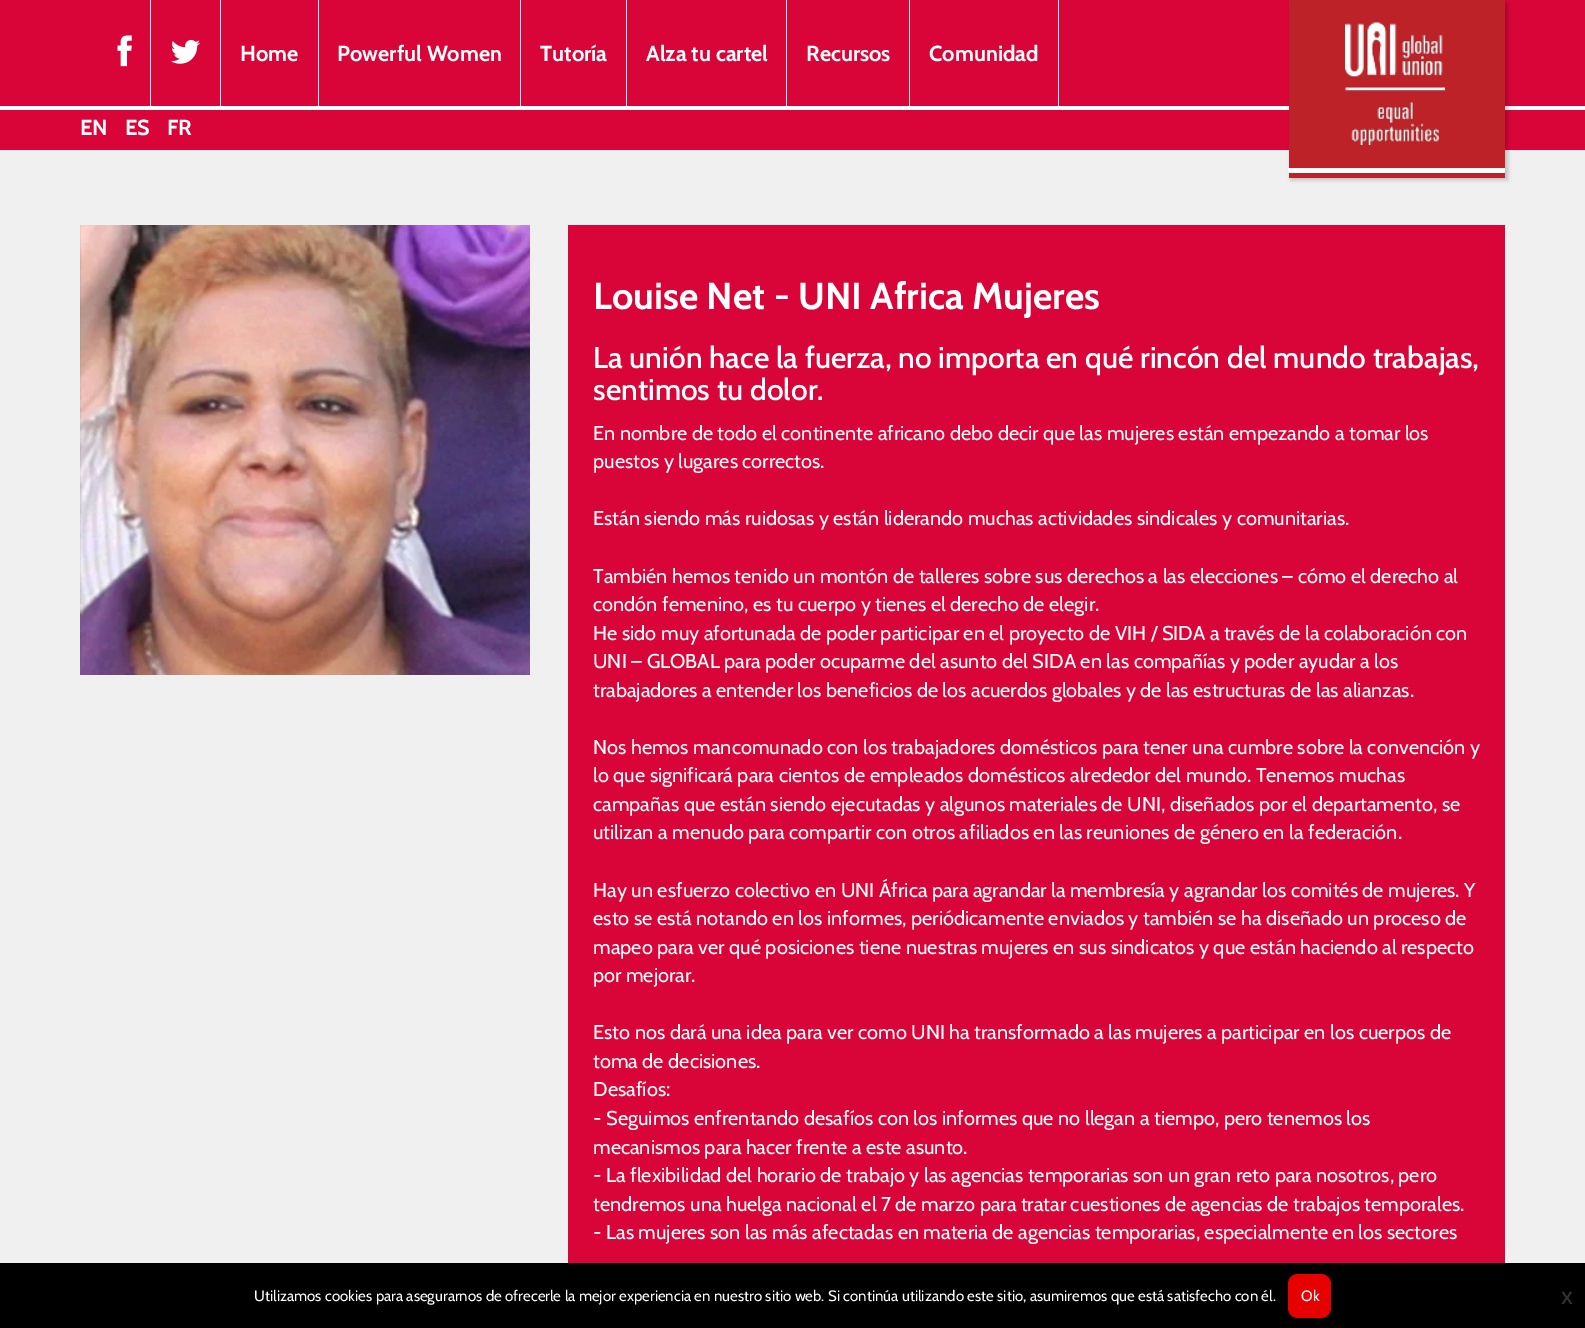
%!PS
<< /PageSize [1585 1328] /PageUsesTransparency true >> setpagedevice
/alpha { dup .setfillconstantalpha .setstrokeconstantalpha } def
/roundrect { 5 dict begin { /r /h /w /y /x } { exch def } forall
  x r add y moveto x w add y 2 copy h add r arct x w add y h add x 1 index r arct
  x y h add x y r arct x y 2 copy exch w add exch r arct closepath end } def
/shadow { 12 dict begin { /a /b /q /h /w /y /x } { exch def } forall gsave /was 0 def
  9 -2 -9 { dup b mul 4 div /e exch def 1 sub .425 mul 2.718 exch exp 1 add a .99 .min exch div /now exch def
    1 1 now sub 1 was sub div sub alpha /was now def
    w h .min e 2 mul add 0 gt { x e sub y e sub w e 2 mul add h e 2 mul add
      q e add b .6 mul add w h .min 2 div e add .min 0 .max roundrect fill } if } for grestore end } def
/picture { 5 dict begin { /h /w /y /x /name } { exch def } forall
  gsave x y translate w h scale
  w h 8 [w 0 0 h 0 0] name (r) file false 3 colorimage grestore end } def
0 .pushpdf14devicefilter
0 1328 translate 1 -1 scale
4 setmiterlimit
0.941 setgray
0 0 1585 1328 rectfill
0.851 0.02 0.22 setrgbcolor
0 0 1585 150 rectfill
1 setgray
0 106 1585 4 rectfill
0.941 setgray
150 0 1 106 rectfill
(img1.rgb) 117 35 15 32 picture
220 0 1 106 rectfill
(img2.rgb) 171 39 29 25 picture
318 0 1 106 rectfill
/Cabin-Bold [21.75 0 0 -21.75 0 0] selectfont
1 setgray
240 61 moveto (Home) show
0.941 setgray
520 0 1 106 rectfill
1 setgray
337 61 moveto (Powerful Women) show
0.941 setgray
626 0 1 106 rectfill
1 setgray
540 61 moveto (Tutoría) show
0.941 setgray
786 0 1 106 rectfill
1 setgray
646 61 moveto (Alza tu cartel) show
0.941 setgray
909 0 1 106 rectfill
1 setgray
806 61 moveto (Recursos) show
0.941 setgray
1058 0 1 106 rectfill
1 setgray
929 61 moveto (Comunidad) show
0 setgray
1291 3 217 177 0 2 0.2 shadow
0.741 0.133 0.157 setrgbcolor
1289 0 216 178 rectfill
1 setgray
1288 168 217 5 rectfill
(img3.rgb) 1345 22 100 123 picture
80 135 moveto (EN) show
125 135 moveto (ES) show
167 135 moveto (FR) show
(img4.rgb) 80 225 450 450 picture
0.851 0.02 0.22 setrgbcolor
568 225 937 1038 rectfill
/Cabin-Bold [37.5 0 0 -37.5 0 0] selectfont
1 setgray
593 309 moveto (Louise Net - UNI Africa Mujeres) show
/Cabin-Medium [30 0 0 -30 0 0] selectfont
593 368 moveto (La unión hace la fuerza, no importa en qué rincón del mundo trabajas,) show
593 400 moveto (sentimos tu dolor.) show
/Cabin-Regular [20 0 0 -20 0 0] selectfont
593 440 moveto (En nombre de todo el continente africano debo decir que las mujeres están empezando a tomar los) show
593 468 moveto (puestos y lugares correctos.) show
593 525 moveto (Están siendo más ruidosas y están liderando muchas actividades sindicales y comunitarias.) show
593 583 moveto (También hemos tenido un montón de talleres sobre sus derechos a las elecciones – cómo el derecho al) show
593 611 moveto (condón femenino, es tu cuerpo y tienes el derecho de elegir.) show
593 640 moveto (He sido muy afortunada de poder participar en el proyecto de VIH / SIDA a través de la colaboración con) show
593 668 moveto (UNI – GLOBAL para poder ocuparme del asunto del SIDA en las compañías y poder ayudar a los) show
593 697 moveto (trabajadores a entender los beneficios de los acuerdos globales y de las estructuras de las alianzas.) show
593 754 moveto (Nos hemos mancomunado con los trabajadores domésticos para tener una cumbre sobre la convención y) show
593 782 moveto (lo que significará para cientos de empleados domésticos alrededor del mundo. Tenemos muchas) show
593 811 moveto (campañas que están siendo ejecutadas y algunos materiales de UNI, diseñados por el departamento, se) show
593 839 moveto (utilizan a menudo para compartir con otros afiliados en las reuniones de género en la federación.) show
593 897 moveto (Hay un esfuerzo colectivo en UNI África para agrandar la membresía y agrandar los comités de mujeres. Y) show
593 925 moveto (esto se está notando en los informes, periódicamente enviados y también se ha diseñado un proceso de) show
593 954 moveto (mapeo para ver qué posiciones tiene nuestras mujeres en sus sindicatos y que están haciendo al respecto) show
593 982 moveto (por mejorar.) show
593 1039 moveto (Esto nos dará una idea para ver como UNI ha transformado a las mujeres a participar en los cuerpos de) show
593 1068 moveto (toma de decisiones.) show
593 1096 moveto (Desafíos:) show
593 1125 moveto (- Seguimos enfrentando desafíos con los informes que no llegan a tiempo, pero tenemos los) show
593 1154 moveto (mecanismos para hacer frente a este asunto.) show
593 1182 moveto (- La flexibilidad del horario de trabajo y las agencias temporarias son un gran reto para nosotros, pero) show
593 1211 moveto (tendremos una huelga nacional el 7 de marzo para tratar cuestiones de agencias de trabajos temporales.) show
593 1239 moveto (- Las mujeres son las más afectadas en materia de agencias temporarias, especialmente en los sectores) show
0 setgray
0 1263 1585 65 rectfill
/Cabin-Regular [15 0 0 -15 0 0] selectfont
1 setgray
254 1301 moveto (Utilizamos cookies para asegurarnos de ofrecerle la mejor experiencia en nuestro sitio web. Si continúa utilizando este sitio, asumiremos que está satisfecho con él.) show
0.902 0 0 setrgbcolor
1288 1274 43 44 10 roundrect fill
1 setgray
1301 1301 moveto (Ok) show
/Cabin-Regular [25 0 0 -25 0 0] selectfont
0.2 setgray
1561 1304 moveto (x) show
.poppdf14devicefilter showpage
